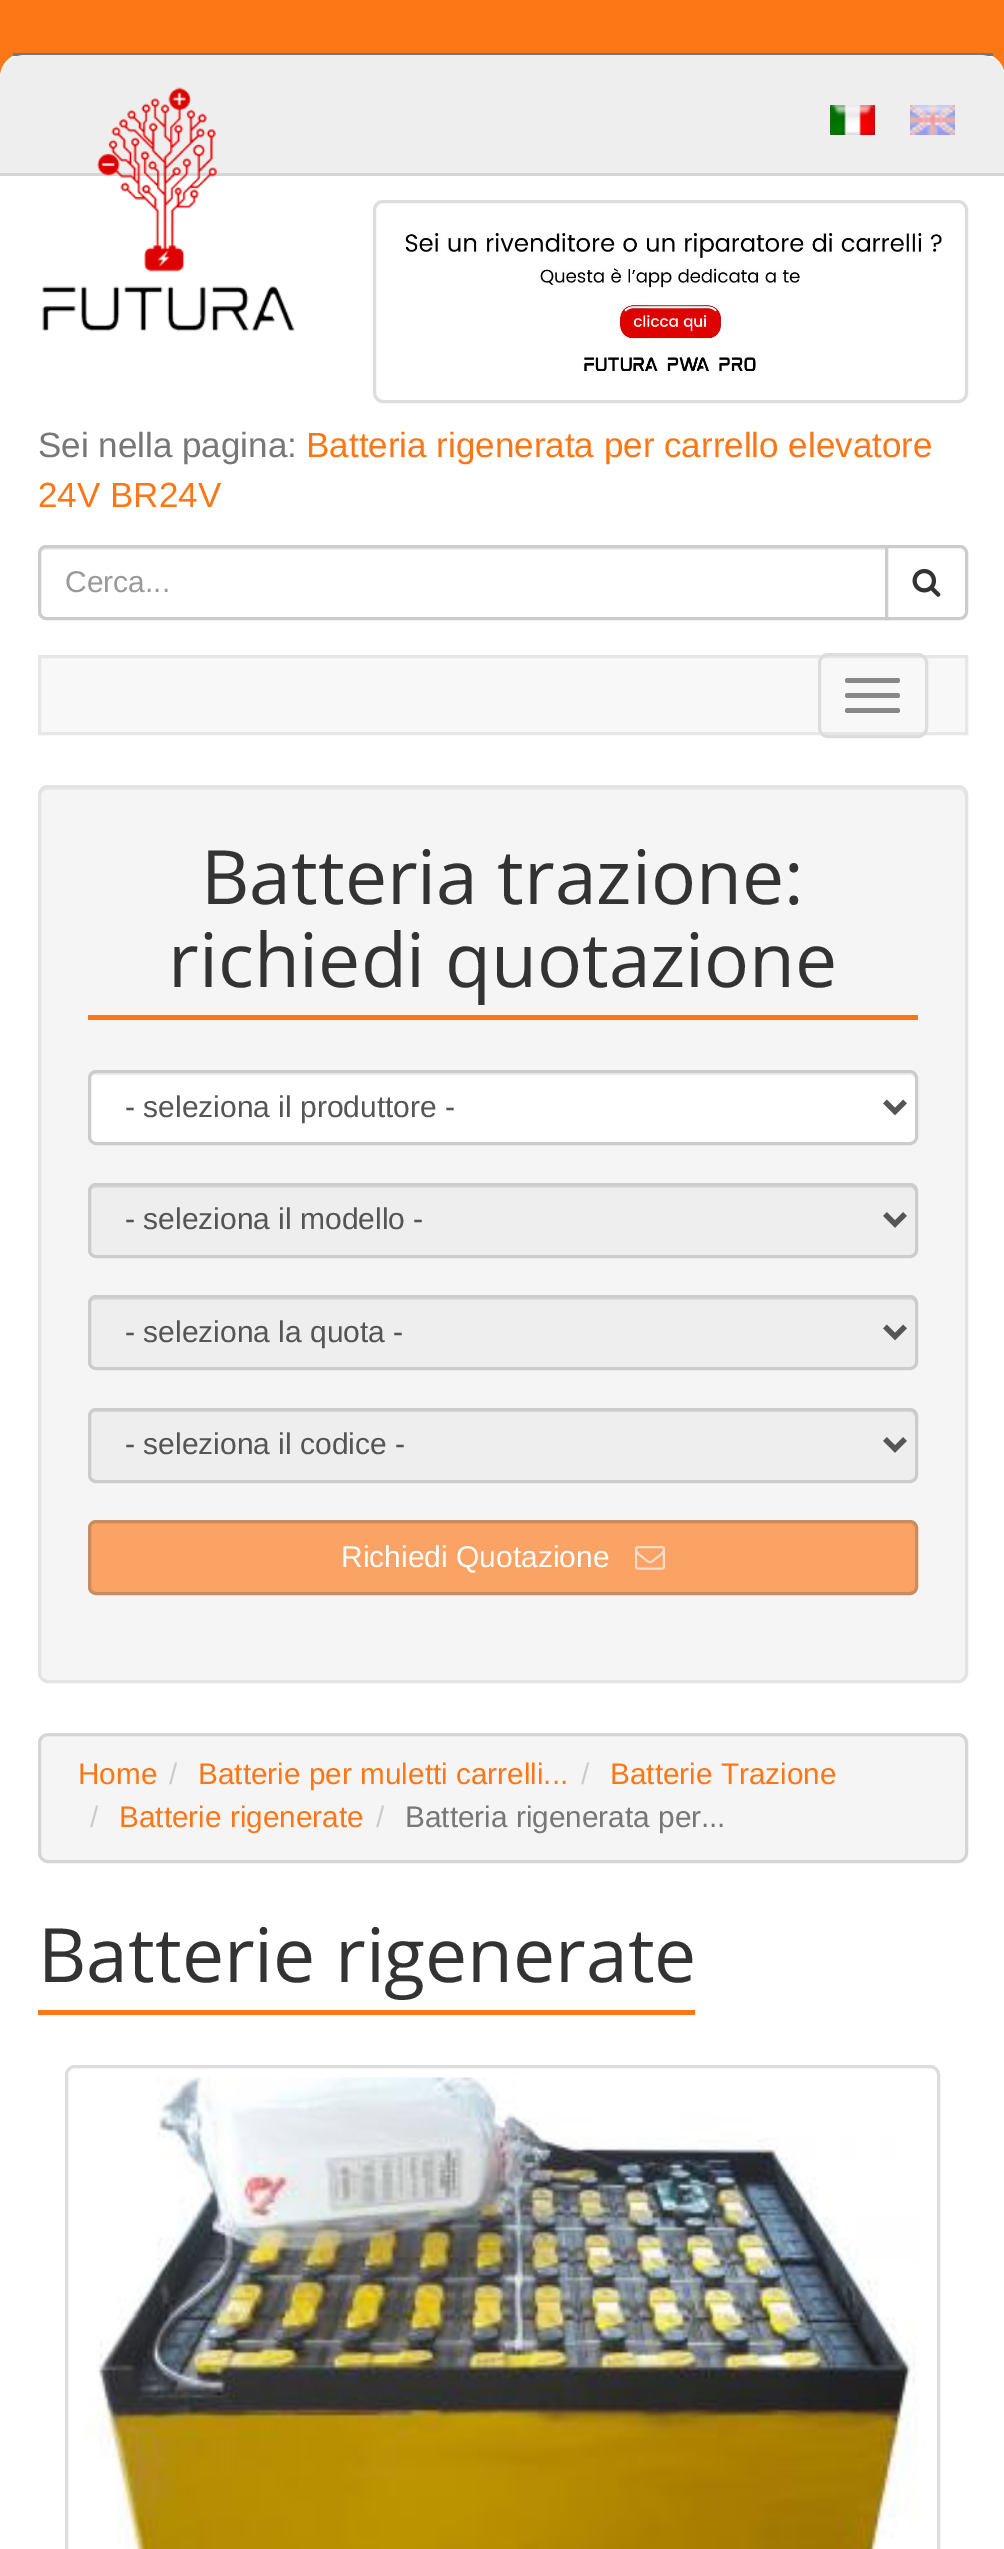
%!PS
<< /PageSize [1004 2549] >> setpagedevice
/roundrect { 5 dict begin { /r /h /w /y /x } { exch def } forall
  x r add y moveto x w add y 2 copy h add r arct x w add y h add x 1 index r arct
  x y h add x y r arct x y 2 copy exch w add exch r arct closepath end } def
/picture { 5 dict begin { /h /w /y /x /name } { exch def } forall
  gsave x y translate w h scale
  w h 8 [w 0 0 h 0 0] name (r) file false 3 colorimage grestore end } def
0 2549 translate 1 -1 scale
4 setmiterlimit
0.992 0.467 0.09 setrgbcolor
0 0 1004 2549 rectfill
1 setgray
newpath 25 53 moveto 980 53 lineto 994 53 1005 64 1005 78 curveto 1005 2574 lineto 0 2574 lineto 0 78 lineto 0 64 11 53 25 53 curveto closepath fill
0.467 setgray
13 53 980 3 rectfill
0.933 setgray
newpath 25 55 moveto 980 55 lineto 994 55 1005 66 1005 80 curveto 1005 175 lineto 0 175 lineto 0 80 lineto 0 66 11 55 25 55 curveto closepath fill
0.835 setgray
0 173 1004 3 rectfill
(img1.rgb) 42 87 253 245 picture
(img2.rgb) 830 105 45 30 picture
(img3.rgb) 910 105 45 30 picture
0.867 setgray
3 setlinewidth
374.5 201.5 592 200 8.5 roundrect stroke
(img4.rgb) 405 233 537 142 picture
/LiberationSans-Regular [35 0 0 -35 0 0] selectfont
0.467 setgray
38 457 moveto (Sei nella pagina:) show
0.992 0.467 0.09 setrgbcolor
306 457 moveto (Batteria rigenerata per carrello elevatore) show
38 507 moveto (24V BR24V) show
0.925 setgray
newpath 45 550 moveto 885 550 lineto 885 548 lineto 45 548 lineto 41 548 40 552 40 555 curveto 40 552 42 550 45 550 curveto closepath fill
0.8 setgray
newpath 46 546.5 moveto 886.5 546.5 lineto 886.5 618.5 lineto 46 618.5 lineto 42.5 618.5 39.5 615.5 39.5 612 curveto 39.5 553 lineto 39.5 549.5 42.5 546.5 46 546.5 curveto closepath stroke
/LiberationSans-Regular [30 0 0 -30 0 0] selectfont
0.6 setgray
65 592 moveto (Cerca...) show
1 setgray
newpath 886.5 546.5 moveto 960 546.5 lineto 963.5 546.5 966.5 549.5 966.5 553 curveto 966.5 612 lineto 966.5 615.5 963.5 618.5 960 618.5 curveto 886.5 618.5 lineto closepath gsave fill grestore
0.8 setgray
stroke
(img5.rgb) 912 568 29 29 picture
0.973 setgray
newpath 39.5 656.5 moveto 966.5 656.5 lineto 966.5 733.5 lineto 39.5 733.5 lineto closepath gsave fill grestore
0.906 setgray
stroke
0.867 setgray
819.5 654.5 107 82 8.5 roundrect stroke
0.533 setgray
845 678 55 5 2.5 roundrect fill
845 693 55 5 2.5 roundrect fill
845 708 55 5 2.5 roundrect fill
0.961 setgray
38 785 930 898 10 roundrect fill
0.914 setgray
newpath 48 790 moveto 958 790 lineto 962 790 965 793 965 798 curveto 965 796 lineto 965 792 961 788 957 788 curveto 48 788 lineto 44 788 40 792 40 796 curveto 40 798 lineto 40 793 43 790 48 790 curveto closepath fill
0.89 setgray
39.5 786.5 927 895 8.5 roundrect stroke
0.992 0.467 0.09 setrgbcolor
88 1015 830 5 rectfill
/OpenSans-Regular [75 0 0 -75 0 0] selectfont
0.2 setgray
201 904 moveto (Batteria trazione:) show
168 987 moveto (richiedi quotazione) show
1 setgray
88 1070 830 75 8 roundrect fill
0.925 setgray
newpath 95 1075 moveto 910 1075 lineto 913 1075 915 1077 915 1080 curveto 915 1078 lineto 915 1075 913 1073 910 1073 curveto 95 1073 lineto 92 1073 90 1075 90 1078 curveto 90 1080 lineto 90 1077 92 1075 95 1075 curveto closepath fill
0.8 setgray
89.5 1071.5 827 72 6.5 roundrect stroke
0.333 setgray
5 setlinewidth
newpath 885 1101.5 moveto 895 1111.5 lineto 905 1101.5 lineto stroke
/LiberationSans-Regular [30 0 0 -30 0 0] selectfont
125 1117 moveto (- seleziona il produttore -) show
0.933 setgray
88 1183 830 75 8 roundrect fill
0.863 setgray
newpath 95 1188 moveto 910 1188 lineto 913 1188 915 1190 915 1192 curveto 915 1190 lineto 915 1187 913 1185 910 1185 curveto 95 1185 lineto 92 1185 90 1187 90 1190 curveto 90 1192 lineto 90 1190 92 1188 95 1188 curveto closepath fill
0.8 setgray
3 setlinewidth
89.5 1184.5 827 72 6.5 roundrect stroke
0.333 setgray
5 setlinewidth
newpath 885 1214 moveto 895 1224 lineto 905 1214 lineto stroke
125 1229 moveto (- seleziona il modello -) show
0.933 setgray
88 1295 830 75 8 roundrect fill
0.863 setgray
newpath 95 1300 moveto 910 1300 lineto 913 1300 915 1302 915 1305 curveto 915 1303 lineto 915 1300 913 1298 910 1298 curveto 95 1298 lineto 92 1298 90 1300 90 1303 curveto 90 1305 lineto 90 1302 92 1300 95 1300 curveto closepath fill
0.8 setgray
3 setlinewidth
89.5 1296.5 827 72 6.5 roundrect stroke
0.333 setgray
5 setlinewidth
newpath 885 1326.5 moveto 895 1336.5 lineto 905 1326.5 lineto stroke
125 1342 moveto (- seleziona la quota -) show
0.933 setgray
88 1408 830 75 8 roundrect fill
0.863 setgray
newpath 95 1412 moveto 910 1412 lineto 913 1412 915 1415 915 1418 curveto 915 1415 lineto 915 1412 913 1410 910 1410 curveto 95 1410 lineto 92 1410 90 1412 90 1415 curveto 90 1418 lineto 90 1415 92 1412 95 1412 curveto closepath fill
0.8 setgray
3 setlinewidth
89.5 1409.5 827 72 6.5 roundrect stroke
0.333 setgray
5 setlinewidth
newpath 885 1439 moveto 895 1449 lineto 905 1439 lineto stroke
125 1454 moveto (- seleziona il codice -) show
0.98 0.639 0.396 setrgbcolor
89.5 1521.5 827 72 6.5 roundrect gsave fill grestore
0.788 0.549 0.376 setrgbcolor
3 setlinewidth
stroke
0.988 setgray
341 1567 moveto (Richiedi Quotazione) show
(img6.rgb) 635 1546 30 24 picture
0.961 setgray
39.5 1734.5 927 127 8.5 roundrect gsave fill grestore
0.835 setgray
stroke
/LiberationSans-Regular [29.75 0 0 -29.75 0 0] selectfont
0.992 0.467 0.09 setrgbcolor
78 1784 moveto (Home) show
0.8 setgray
169 1784 moveto (/) show
0.992 0.467 0.09 setrgbcolor
198 1784 moveto (Batterie per muletti carrelli...) show
0.8 setgray
581 1784 moveto (/) show
0.992 0.467 0.09 setrgbcolor
610 1784 moveto (Batterie Trazione) show
0.8 setgray
90 1827 moveto (/) show
0.992 0.467 0.09 setrgbcolor
119 1827 moveto (Batterie rigenerate) show
0.8 setgray
376 1827 moveto (/) show
0.467 setgray
405 1827 moveto (Batteria rigenerata per...) show
0.992 0.467 0.09 setrgbcolor
38 2010 657 5 rectfill
/OpenSans-Regular [75 0 0 -75 0 0] selectfont
0.2 setgray
38 1982 moveto (Batterie rigenerate) show
0.867 setgray
66.5 2066.5 872 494 8.5 roundrect stroke
(img7.rgb) 84 2077 835 472 picture
showpage
